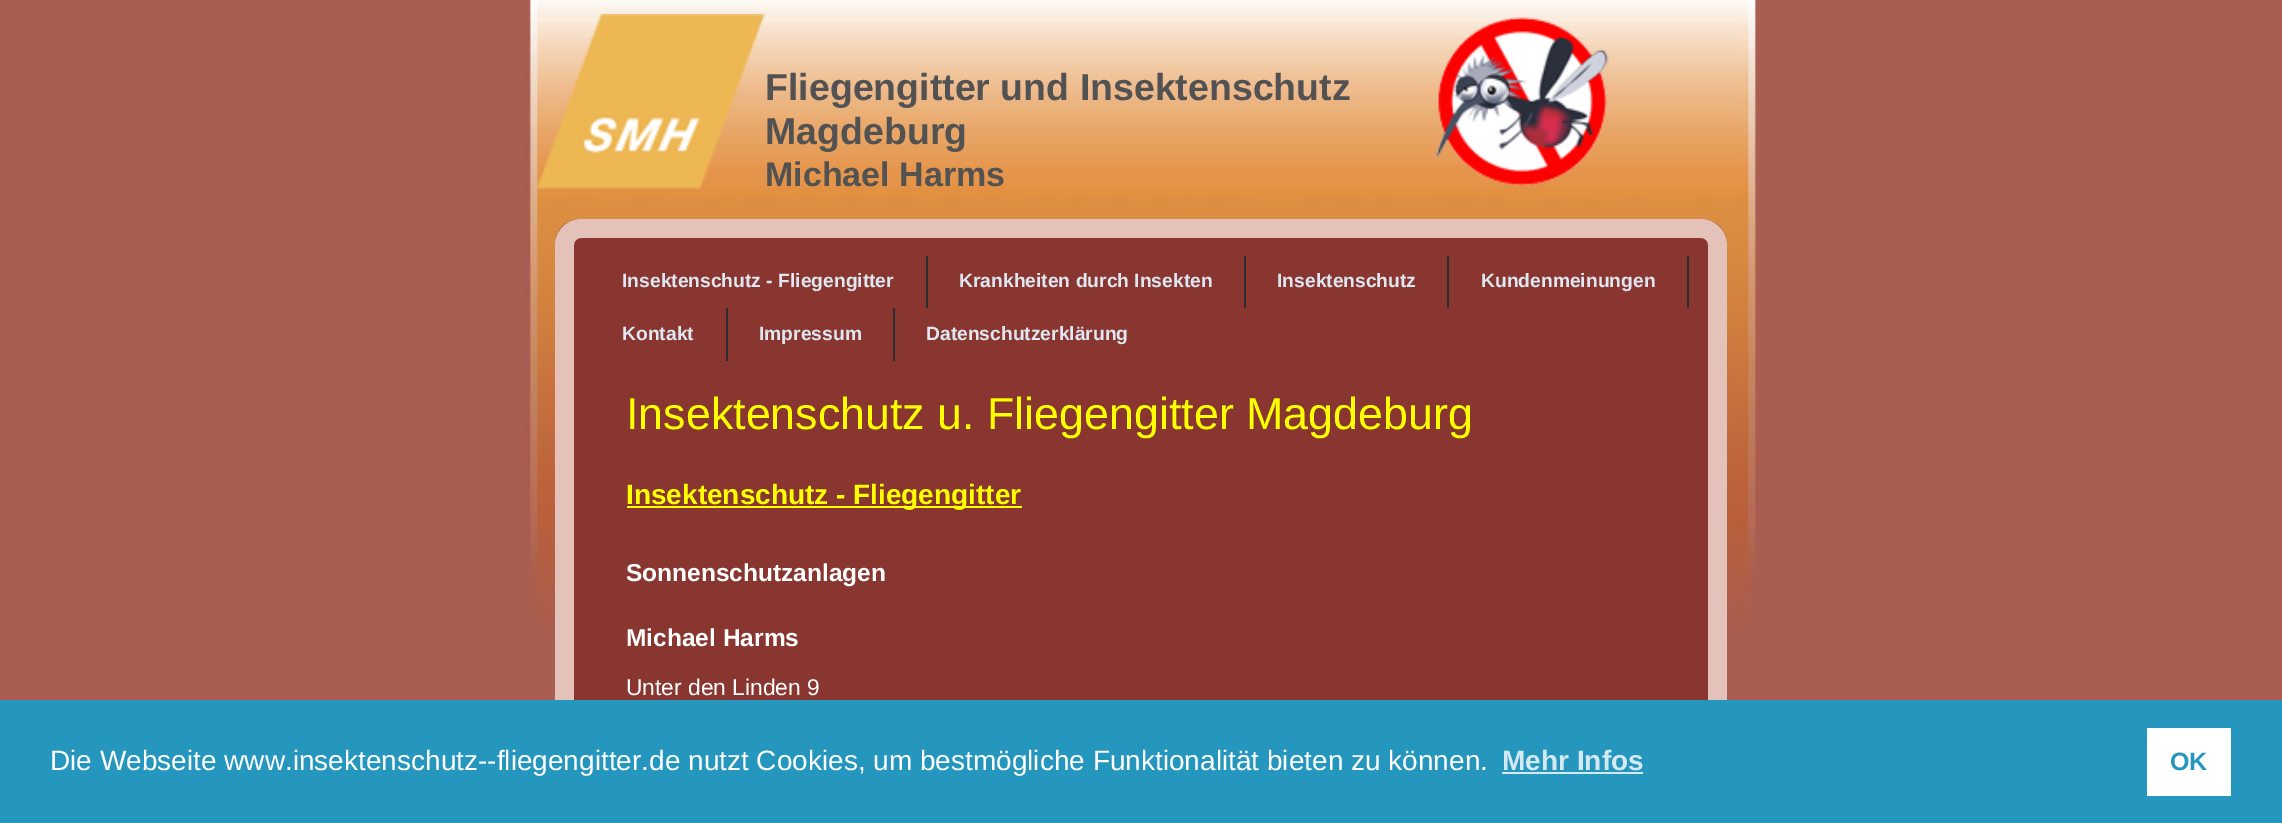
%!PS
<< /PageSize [2282 823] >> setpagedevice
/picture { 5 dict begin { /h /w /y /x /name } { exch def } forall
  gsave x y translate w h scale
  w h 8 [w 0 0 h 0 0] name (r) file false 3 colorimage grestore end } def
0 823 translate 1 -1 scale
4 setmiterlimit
0.667 0.369 0.318 setrgbcolor
0 0 2282 823 rectfill
(img1.rgb) 523 0 1233 636 picture
(img2.rgb) 537 14 228 175 picture
/LiberationSans-Bold [37.5 0 0 -37.5 0 0] selectfont
0.322 setgray
765 100 moveto (Fliegengitter und Insektenschutz) show
765 144 moveto (Magdeburg) show
/LiberationSans-Bold [34 0 0 -34 0 0] selectfont
765 186 moveto (Michael Harms) show
(img3.rgb) 1434 17 175 169 picture
0.533 0.212 0.184 setrgbcolor
newpath 581 219 moveto 1701 219 lineto 1715.5 219 1727 230.5 1727 245 curveto 1727 327 lineto 555 327 lineto 555 245 lineto 555 230.5 566.5 219 581 219 curveto closepath fill
0.894 0.761 0.725 setrgbcolor
newpath 581 219 moveto 1701 219 lineto 1715 219 1727 231 1727 245 curveto 1727 327 lineto 555 327 lineto 555 245 lineto 555 231 567 219 581 219 curveto closepath 581 238 moveto 1701 238 lineto 1705 238 1708 241 1708 245 curveto 1708 327 lineto 574 327 lineto 574 245 lineto 574 241 577 238 581 238 curveto closepath eofill
0.165 0.173 0.184 setrgbcolor
926 256 2 52 rectfill
/LiberationSans-Bold [19.25 0 0 -19.25 0 0] selectfont
0.875 0.91 0.949 setrgbcolor
622 287 moveto (Insektenschutz - Fliegengitter) show
0.165 0.173 0.184 setrgbcolor
1244 256 2 52 rectfill
0.875 0.91 0.949 setrgbcolor
959 287 moveto (Krankheiten durch Insekten) show
0.165 0.173 0.184 setrgbcolor
1447 256 2 52 rectfill
0.875 0.91 0.949 setrgbcolor
1277 287 moveto (Insektenschutz) show
0.165 0.173 0.184 setrgbcolor
1687 256 2 52 rectfill
0.875 0.91 0.949 setrgbcolor
1481 287 moveto (Kundenmeinungen) show
0.533 0.212 0.184 setrgbcolor
574 327 1134 373 rectfill
0.894 0.761 0.725 setrgbcolor
newpath 555 327 moveto 1727 327 lineto 1727 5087 lineto 1727 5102 1715 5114 1701 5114 curveto 581 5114 lineto 567 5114 555 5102 555 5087 curveto closepath 574 327 moveto 1708 327 lineto 1708 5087 lineto 1708 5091 1705 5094 1701 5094 curveto 581 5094 lineto 577 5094 574 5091 574 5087 curveto closepath eofill
0.165 0.173 0.184 setrgbcolor
726 308 2 53 rectfill
0.875 0.91 0.949 setrgbcolor
622 340 moveto (Kontakt) show
0.165 0.173 0.184 setrgbcolor
893 308 2 53 rectfill
0.875 0.91 0.949 setrgbcolor
759 340 moveto (Impressum) show
926 340 moveto (Datenschutzerklärung) show
/LiberationSans-Regular [44.8 0 0 -44.8 0 0] selectfont
1 1 0 setrgbcolor
626 429 moveto (Insektenschutz u. Fliegengitter Magdeburg) show
627 506 395 2 rectfill
/LiberationSans-Bold [28 0 0 -28 0 0] selectfont
626 504 moveto (Insektenschutz - Fliegengitter) show
/LiberationSans-Bold [24.5 0 0 -24.5 0 0] selectfont
1 setgray
626 581 moveto (Sonnenschutzanlagen) show
626 646 moveto (Michael Harms) show
/LiberationSans-Regular [22.75 0 0 -22.75 0 0] selectfont
626 695 moveto (Unter den Linden 9) show
0.145 0.588 0.745 setrgbcolor
0 700 2282 123 rectfill
/LiberationSans-Regular [28 0 0 -28 0 0] selectfont
1 setgray
50 770 moveto (Die Webseite www.insektenschutz--fliegengitter.de nutzt Cookies, um bestmögliche Funktionalität bieten zu können.) show
/LiberationSans-Bold [28 0 0 -28 0 0] selectfont
0.827 0.918 0.949 setrgbcolor
1502 770 moveto (Mehr Infos) show
1502 772 141 2 rectfill
1 setgray
2147 728 84 68 rectfill
/LiberationSans-Bold [25 0 0 -25 0 0] selectfont
0.145 0.588 0.745 setrgbcolor
2170 770 moveto (OK) show
showpage
